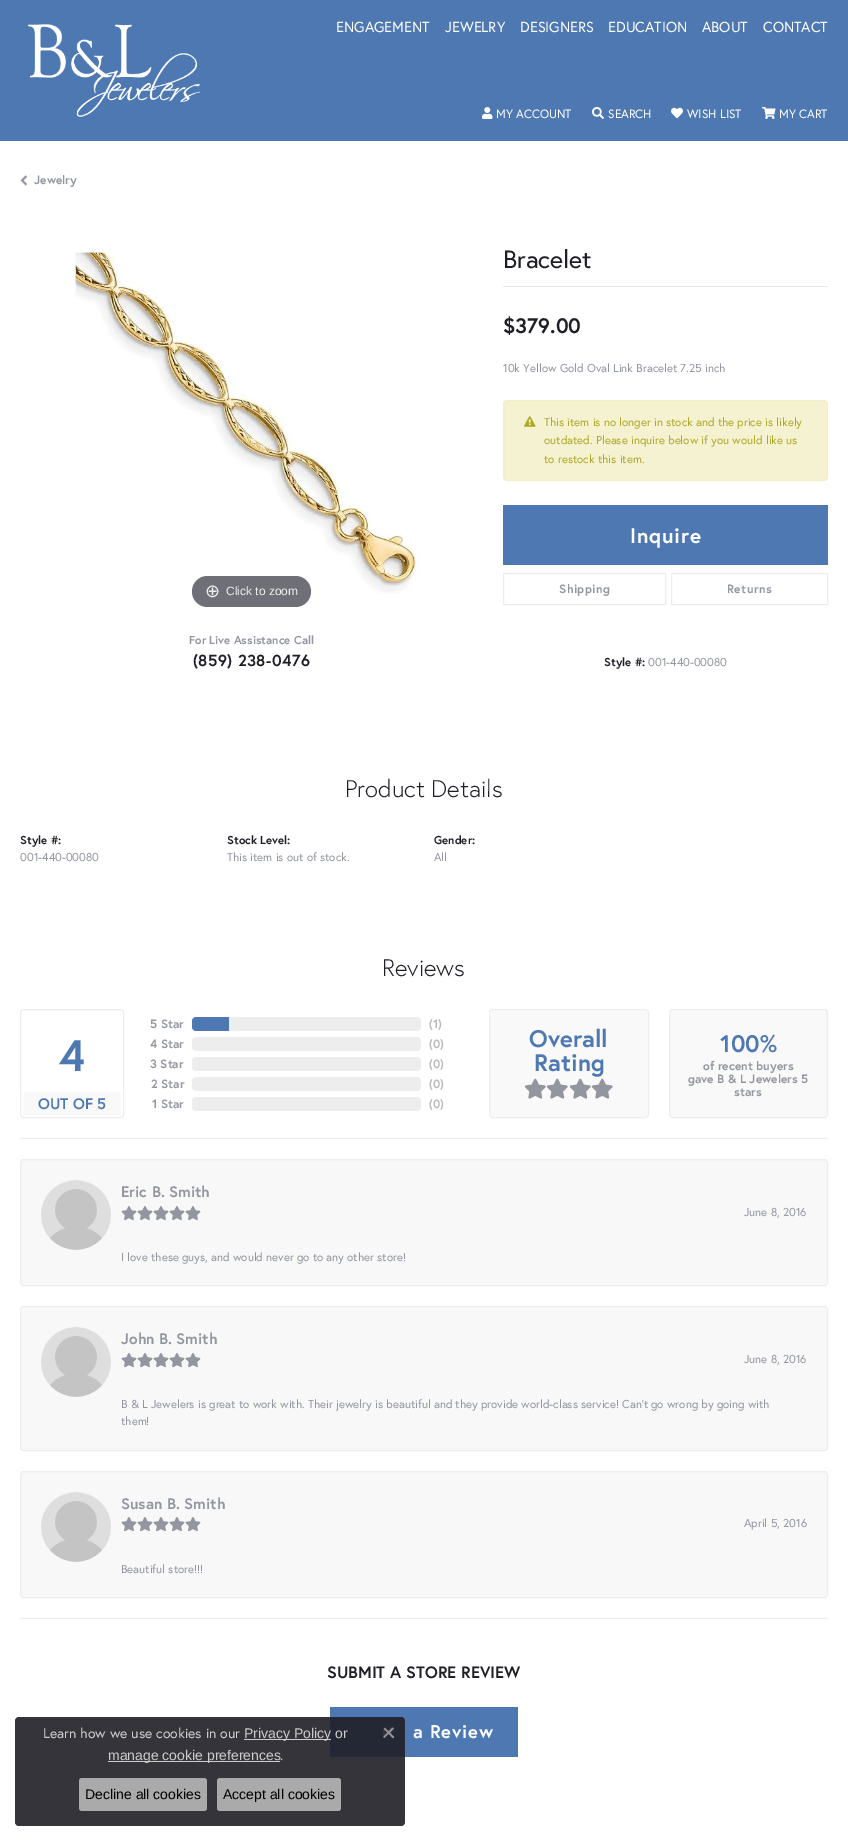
%!PS
<< /PageSize [848 1841] /PageUsesTransparency true >> setpagedevice
/alpha { dup .setfillconstantalpha .setstrokeconstantalpha } def
/roundrect { 5 dict begin { /r /h /w /y /x } { exch def } forall
  x r add y moveto x w add y 2 copy h add r arct x w add y h add x 1 index r arct
  x y h add x y r arct x y 2 copy exch w add exch r arct closepath end } def
/picture { 5 dict begin { /h /w /y /x /name } { exch def } forall
  gsave x y translate w h scale
  w h 8 [w 0 0 h 0 0] name (r) file false 3 colorimage grestore end } def
0 .pushpdf14devicefilter
0 1841 translate 1 -1 scale
4 setmiterlimit
1 setgray
0 0 848 1841 rectfill
0.302 0.471 0.698 setrgbcolor
0 0 848 141 rectfill
(img1.rgb) 28 24 172 93 picture
/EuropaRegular-Regular [14.5 0 0 -14.5 0 0] selectfont
1 setgray
336 32 moveto (ENGAGEMENT) show
445 32 moveto (JEWELRY) show
520 32 moveto (DESIGNERS) show
608 32 moveto (EDUCATION) show
702 32 moveto (ABOUT) show
763 32 moveto (CONTACT) show
(img2.rgb) 482 107 11 12 picture
/EuropaRegular-Regular [12 0 0 -12 0 0] selectfont
496 118 moveto (MY ACCOUNT) show
(img3.rgb) 592 107 12 12 picture
608 118 moveto (SEARCH) show
(img4.rgb) 671 107 12 12 picture
687 118 moveto (WISH LIST) show
(img5.rgb) 762 107 14 12 picture
779 118 moveto (MY CART) show
(img6.rgb) 20 175 7 11 picture
/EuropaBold-Bold [12 0 0 -12 0 0] selectfont
0.576 0.588 0.624 setrgbcolor
34 184 moveto (Jewelry) show
(img7.rgb) 74 251 347 343 picture
0.435 0.439 0.467 setrgbcolor
192 576 119 31 15.5 roundrect fill
/DejaVuSans-Regular [18 0 0 -18 0 0] selectfont
0.933 setgray
205 597 moveto (⊕) show
/LiberationSans-Regular [12 0 0 -12 0 0] selectfont
226 595 moveto (Click to zoom) show
/EuropaBold-Bold [11.5 0 0 -11.5 0 0] selectfont
0.576 0.588 0.624 setrgbcolor
189 644 moveto (For Live Assistance Call) show
/EuropaBold-Bold [16 0 0 -16 0 0] selectfont
0.125 0.118 0.149 setrgbcolor
193 666 moveto 0.4 0 (\(859\) 238-0476) ashow
/EuropaRegular-Regular [25 0 0 -25 0 0] selectfont
503 268 moveto (Bracelet) show
0.906 setgray
503 286 325 1 rectfill
/EuropaBold-Bold [21 0 0 -21 0 0] selectfont
0.125 0.118 0.149 setrgbcolor
503 333 moveto ($379.00) show
/EuropaRegular-Regular [11.5 0 0 -11.5 0 0] selectfont
0.576 0.588 0.624 setrgbcolor
503 372 moveto (10k Yellow Gold Oval Link Bracelet 7.25 inch) show
0.957 0.949 0.816 setrgbcolor
503 400 325 81 4 roundrect fill
0.1 alpha
0.859 0.831 0.388 setrgbcolor
503.5 400.5 324 80 3.5 roundrect stroke
1 alpha
(img8.rgb) 524 416 12 11 picture
0.69 0.659 0.161 setrgbcolor
544 426 moveto (This item is no longer in stock and the price is likely) show
544 444 moveto (outdated. Please inquire below if you would like us) show
544 463 moveto (to restock this item.) show
0.302 0.471 0.698 setrgbcolor
503 505 325 60 rectfill
/EuropaBold-Bold [21 0 0 -21 0 0] selectfont
1 setgray
630 543 moveto 0.75 0 (Inquire) ashow
0.929 0.929 0.933 setrgbcolor
503.5 573.5 162 31 rectstroke
/EuropaBold-Bold [12 0 0 -12 0 0] selectfont
0.576 0.588 0.624 setrgbcolor
559 593 moveto 0.4 0 (Shipping) ashow
0.929 0.929 0.933 setrgbcolor
671.5 573.5 156 31 rectstroke
0.576 0.588 0.624 setrgbcolor
727 593 moveto 0.4 0 (Returns) ashow
/EuropaBold-Bold [11.5 0 0 -11.5 0 0] selectfont
0.125 0.118 0.149 setrgbcolor
604 666 moveto (Style #:) show
/EuropaRegular-Regular [11.5 0 0 -11.5 0 0] selectfont
0.576 0.588 0.624 setrgbcolor
648 666 moveto (001-440-00080) show
/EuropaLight-Light [24 0 0 -24 0 0] selectfont
0.125 0.118 0.149 setrgbcolor
345 797 moveto (Product Details) show
/EuropaBold-Bold [11.5 0 0 -11.5 0 0] selectfont
20 844 moveto (Style #:) show
/EuropaRegular-Regular [11.5 0 0 -11.5 0 0] selectfont
0.576 0.588 0.624 setrgbcolor
20 861 moveto (001-440-00080) show
/EuropaBold-Bold [11.5 0 0 -11.5 0 0] selectfont
0.125 0.118 0.149 setrgbcolor
227 844 moveto (Stock Level:) show
/EuropaRegular-Regular [11.5 0 0 -11.5 0 0] selectfont
0.576 0.588 0.624 setrgbcolor
227 861 moveto (This item is out of stock.) show
/EuropaBold-Bold [11.5 0 0 -11.5 0 0] selectfont
0.125 0.118 0.149 setrgbcolor
434 844 moveto (Gender:) show
/EuropaRegular-Regular [11.5 0 0 -11.5 0 0] selectfont
0.576 0.588 0.624 setrgbcolor
434 861 moveto (All) show
/EuropaLight-Light [24 0 0 -24 0 0] selectfont
0.125 0.118 0.149 setrgbcolor
382 976 moveto (Reviews) show
0.929 0.929 0.933 setrgbcolor
20.5 1009.5 103 108 3.5 roundrect stroke
/EuropaBold-Bold [44 0 0 -44 0 0] selectfont
0.302 0.471 0.698 setrgbcolor
59 1071 moveto (4) show
0.976 setgray
23 1092 98 23 2 roundrect fill
/EuropaBold-Bold [15.25 0 0 -15.25 0 0] selectfont
0.302 0.471 0.698 setrgbcolor
38 1109 moveto (OUT OF 5) show
/EuropaBold-Bold [12 0 0 -12 0 0] selectfont
0.576 0.588 0.624 setrgbcolor
150 1028 moveto (5 Star) show
150 1048 moveto (4 Star) show
150 1068 moveto (3 Star) show
151 1088 moveto (2 Star) show
152 1108 moveto (1 Star) show
0.929 0.929 0.933 setrgbcolor
192 1017 229 14 4 roundrect fill
0.302 0.471 0.698 setrgbcolor
newpath 196 1017 moveto 229 1017 lineto 229 1031 lineto 196 1031 lineto 194 1031 192 1029 192 1027 curveto 192 1021 lineto 192 1019 194 1017 196 1017 curveto closepath fill
0.929 0.929 0.933 setrgbcolor
192 1037 229 14 4 roundrect fill
192 1057 229 14 4 roundrect fill
192 1077 229 14 4 roundrect fill
192 1097 229 14 4 roundrect fill
0.725 0.725 0.733 setrgbcolor
429 1028 moveto (\(1\)) show
429 1048 moveto (\(0\)) show
429 1068 moveto (\(0\)) show
429 1088 moveto (\(0\)) show
429 1108 moveto (\(0\)) show
0.976 setgray
489.5 1009.5 159 108 3.5 roundrect gsave fill grestore
0.929 0.929 0.933 setrgbcolor
stroke
/EuropaBold-Bold [24 0 0 -24 0 0] selectfont
0.302 0.471 0.698 setrgbcolor
529 1047 moveto (Overall) show
534 1071 moveto (Rating) show
(img9.rgb) 524 1078 22 21 picture
(img9.rgb) 546 1078 22 21 picture
(img9.rgb) 569 1078 22 21 picture
(img9.rgb) 591 1078 22 21 picture
0.976 setgray
669.5 1009.5 158 108 3.5 roundrect gsave fill grestore
0.929 0.929 0.933 setrgbcolor
stroke
0.302 0.471 0.698 setrgbcolor
720 1052 moveto (100%) show
/EuropaBold-Bold [12 0 0 -12 0 0] selectfont
0.576 0.588 0.624 setrgbcolor
703 1070 moveto (of recent buyers) show
688 1083 moveto (gave B & L Jewelers 5) show
734 1096 moveto (stars) show
0.929 0.929 0.933 setrgbcolor
20 1138 808 1 rectfill
20 1618 808 1 rectfill
0.973 0.973 0.976 setrgbcolor
20.5 1159.5 807 126 3.5 roundrect gsave fill grestore
0.929 0.929 0.933 setrgbcolor
stroke
(img10.rgb) 41 1180 70 70 picture
/EuropaBold-Bold [15.25 0 0 -15.25 0 0] selectfont
0.576 0.588 0.624 setrgbcolor
121 1197 moveto (Eric B. Smith) show
(img11.rgb) 121 1206 16 15 picture
(img11.rgb) 137 1206 16 15 picture
(img11.rgb) 153 1206 16 15 picture
(img11.rgb) 169 1206 16 15 picture
(img11.rgb) 185 1206 16 15 picture
/EuropaRegular-Regular [11.5 0 0 -11.5 0 0] selectfont
744 1216 moveto (June 8, 2016) show
121 1261 moveto (I love these guys, and would never go to any other store!) show
0.973 0.973 0.976 setrgbcolor
20.5 1306.5 807 144 3.5 roundrect gsave fill grestore
0.929 0.929 0.933 setrgbcolor
stroke
(img12.rgb) 41 1327 70 70 picture
/EuropaBold-Bold [15.25 0 0 -15.25 0 0] selectfont
0.576 0.588 0.624 setrgbcolor
121 1344 moveto (John B. Smith) show
(img11.rgb) 121 1353 16 15 picture
(img11.rgb) 137 1353 16 15 picture
(img11.rgb) 153 1353 16 15 picture
(img11.rgb) 169 1353 16 15 picture
(img11.rgb) 185 1353 16 15 picture
/EuropaRegular-Regular [11.5 0 0 -11.5 0 0] selectfont
744 1363 moveto (June 8, 2016) show
121 1408 moveto (B & L Jewelers is great to work with. Their jewelry is beautiful and they provide world-class service! Can't go wrong by going with) show
121 1425 moveto (them!) show
0.973 0.973 0.976 setrgbcolor
20.5 1471.5 807 126 3.5 roundrect gsave fill grestore
0.929 0.929 0.933 setrgbcolor
stroke
(img13.rgb) 41 1492 70 70 picture
/EuropaBold-Bold [15.25 0 0 -15.25 0 0] selectfont
0.576 0.588 0.624 setrgbcolor
121 1509 moveto (Susan B. Smith) show
(img11.rgb) 121 1517 16 15 picture
(img11.rgb) 137 1517 16 15 picture
(img11.rgb) 153 1517 16 15 picture
(img11.rgb) 169 1517 16 15 picture
(img11.rgb) 185 1517 16 15 picture
/EuropaRegular-Regular [11.5 0 0 -11.5 0 0] selectfont
744 1527 moveto (April 5, 2016) show
121 1573 moveto (Beautiful store!!!) show
/EuropaBold-Bold [16.5 0 0 -16.5 0 0] selectfont
0.125 0.118 0.149 setrgbcolor
327 1678 moveto (SUBMIT A STORE REVIEW) show
0.302 0.471 0.698 setrgbcolor
330 1707 188 50 rectfill
/EuropaBold-Bold [18.5 0 0 -18.5 0 0] selectfont
1 setgray
413 1738 moveto 0.75 0 (a Review) ashow
0.9 alpha
0.125 0.118 0.149 setrgbcolor
15 1717 390 109 4 roundrect fill
/EuropaRegular-Regular [14 0 0 -14 0 0] selectfont
1 alpha
0.8 setgray
43 1738 moveto (Learn how we use cookies in our) show
244 1739 87 1 rectfill
/LiberationSans-Regular [14 0 0 -14 0 0] selectfont
244 1738 moveto (Privacy Policy or) show
108 1761 172 1 rectfill
108 1760 moveto (manage cookie preferences) show
/EuropaRegular-Regular [14 0 0 -14 0 0] selectfont
280 1760 moveto (.) show
(img14.rgb) 383 1727 12 12 picture
0.667 setgray
79 1778 128 33 3 roundrect fill
/LiberationSans-Regular [14 0 0 -14 0 0] selectfont
0 setgray
85 1799 moveto (Decline all cookies) show
0.667 setgray
217 1778 124 33 3 roundrect fill
0 setgray
223 1799 moveto (Accept all cookies) show
.poppdf14devicefilter showpage
